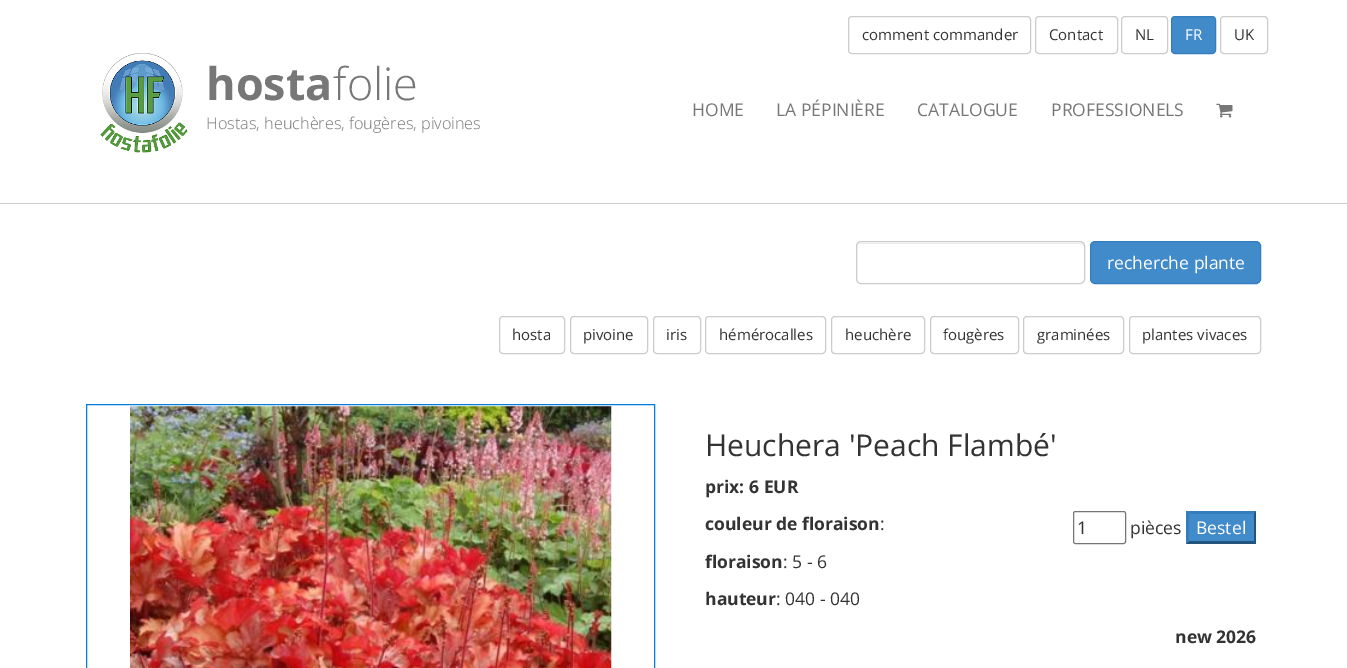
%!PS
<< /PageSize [1347 668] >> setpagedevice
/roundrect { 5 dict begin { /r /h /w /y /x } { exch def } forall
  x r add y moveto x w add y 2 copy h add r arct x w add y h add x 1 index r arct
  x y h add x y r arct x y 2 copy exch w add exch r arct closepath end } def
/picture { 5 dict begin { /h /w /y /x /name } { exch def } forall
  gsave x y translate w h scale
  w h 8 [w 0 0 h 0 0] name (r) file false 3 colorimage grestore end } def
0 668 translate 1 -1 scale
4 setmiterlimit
1 setgray
0 0 1347 668 rectfill
0.8 setgray
0 203 1347 1 rectfill
848.5 16.5 182 37 3.5 roundrect stroke
/OpenSans-Regular [15 0 0 -15 0 0] selectfont
0.2 setgray
862 40 moveto (comment commander) show
0.8 setgray
1035.5 16.5 82 37 3.5 roundrect stroke
0.2 setgray
1049 40 moveto (Contact) show
0.8 setgray
1121.5 16.5 46 37 3.5 roundrect stroke
0.2 setgray
1135 40 moveto (NL) show
0.259 0.545 0.792 setrgbcolor
1171.5 16.5 44 37 3.5 roundrect gsave fill grestore
0.208 0.494 0.741 setrgbcolor
stroke
1 setgray
1185 40 moveto (FR) show
0.8 setgray
1220.5 16.5 47 37 3.5 roundrect stroke
0.2 setgray
1234 40 moveto (UK) show
(img1.rgb) 100 53 88 100 picture
/OpenSans-Bold [45 0 0 -45 0 0] selectfont
0.467 setgray
206 100 moveto (hosta) show
/OpenSans-Light [45 0 0 -45 0 0] selectfont
333 100 moveto (folie) show
/OpenSans-Light [16.25 0 0 -16.25 0 0] selectfont
206 129 moveto (Hostas, heuchères, fougères, pivoines) show
/OpenSans-Regular [17.5 0 0 -17.5 0 0] selectfont
692 116 moveto (HOME) show
776 116 moveto (LA PÉPINIÈRE) show
917 116 moveto (CATALOGUE) show
1051 116 moveto (PROFESSIONELS) show
(img2.rgb) 1216 103 17 15 picture
0.925 setgray
newpath 861 244 moveto 1080 244 lineto 1082 244 1084 245 1084 248 curveto 1084 245 1083 243 1080 243 curveto 862 243 lineto 859 243 858 245 858 248 curveto 858 245 859 244 861 244 curveto closepath fill
0.8 setgray
856.5 241.5 228 42 4.5 roundrect stroke
0.259 0.545 0.792 setrgbcolor
1090.5 241.5 170 42 4.5 roundrect gsave fill grestore
0.208 0.494 0.741 setrgbcolor
stroke
1 setgray
1107 269 moveto (recherche plante) show
0.8 setgray
499.5 316.5 65 37 3.5 roundrect stroke
/OpenSans-Regular [15 0 0 -15 0 0] selectfont
0.2 setgray
512 340 moveto (hosta) show
0.8 setgray
570.5 316.5 77 37 3.5 roundrect stroke
0.2 setgray
583 340 moveto (pivoine) show
0.8 setgray
653.5 316.5 47 37 3.5 roundrect stroke
0.2 setgray
666 340 moveto (iris) show
0.8 setgray
705.5 316.5 120 37 3.5 roundrect stroke
0.2 setgray
719 340 moveto (hémérocalles) show
0.8 setgray
831.5 316.5 93 37 3.5 roundrect stroke
0.2 setgray
845 340 moveto (heuchère) show
0.8 setgray
930.5 316.5 88 37 3.5 roundrect stroke
0.2 setgray
943 340 moveto (fougères) show
0.8 setgray
1023.5 316.5 100 37 3.5 roundrect stroke
0.2 setgray
1037 340 moveto (graminées) show
0.8 setgray
1129.5 316.5 131 37 3.5 roundrect stroke
0.2 setgray
1142 340 moveto (plantes vivaces) show
0.016 0.486 0.863 setrgbcolor
86.5 404.5 568 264 rectstroke
(img3.rgb) 130 406 482 262 picture
/OpenSans-Regular [30 0 0 -30 0 0] selectfont
0.2 setgray
705 456 moveto (Heuchera 'Peach Flambé') show
/OpenSans-Bold [17.5 0 0 -17.5 0 0] selectfont
705 493 moveto (prix: 6 EUR) show
705 530 moveto (couleur de floraison) show
/OpenSans-Regular [17.5 0 0 -17.5 0 0] selectfont
880 530 moveto (:) show
/OpenSans-Bold [17.5 0 0 -17.5 0 0] selectfont
705 568 moveto (floraison) show
/OpenSans-Regular [17.5 0 0 -17.5 0 0] selectfont
783 568 moveto (: 5 - 6) show
/OpenSans-Bold [17.5 0 0 -17.5 0 0] selectfont
705 605 moveto (hauteur) show
/OpenSans-Regular [17.5 0 0 -17.5 0 0] selectfont
776 605 moveto (: 040 - 040) show
/OpenSans-Bold [17.5 0 0 -17.5 0 0] selectfont
1175 643 moveto (new 2026) show
0.463 setgray
1073.5 511.5 52 32 2 roundrect stroke
/OpenSans-Regular [17.5 0 0 -17.5 0 0] selectfont
0.2 setgray
1077 534 moveto (1) show
1130 534 moveto (pièces) show
0.259 0.545 0.792 setrgbcolor
1186 511 70 33 rectfill
0.208 0.494 0.741 setrgbcolor
newpath 1186 511 moveto 1256 511 lineto 1254 514 lineto 1189 514 lineto closepath fill
0.137 0.329 0.494 setrgbcolor
newpath 1256 511 moveto 1256 544 lineto 1254 541 lineto 1254 514 lineto closepath fill
newpath 1256 544 moveto 1186 544 lineto 1189 541 lineto 1254 541 lineto closepath fill
0.208 0.494 0.741 setrgbcolor
newpath 1186 544 moveto 1186 511 lineto 1189 514 lineto 1189 541 lineto closepath fill
1 setgray
1196 534 moveto (Bestel) show
showpage
